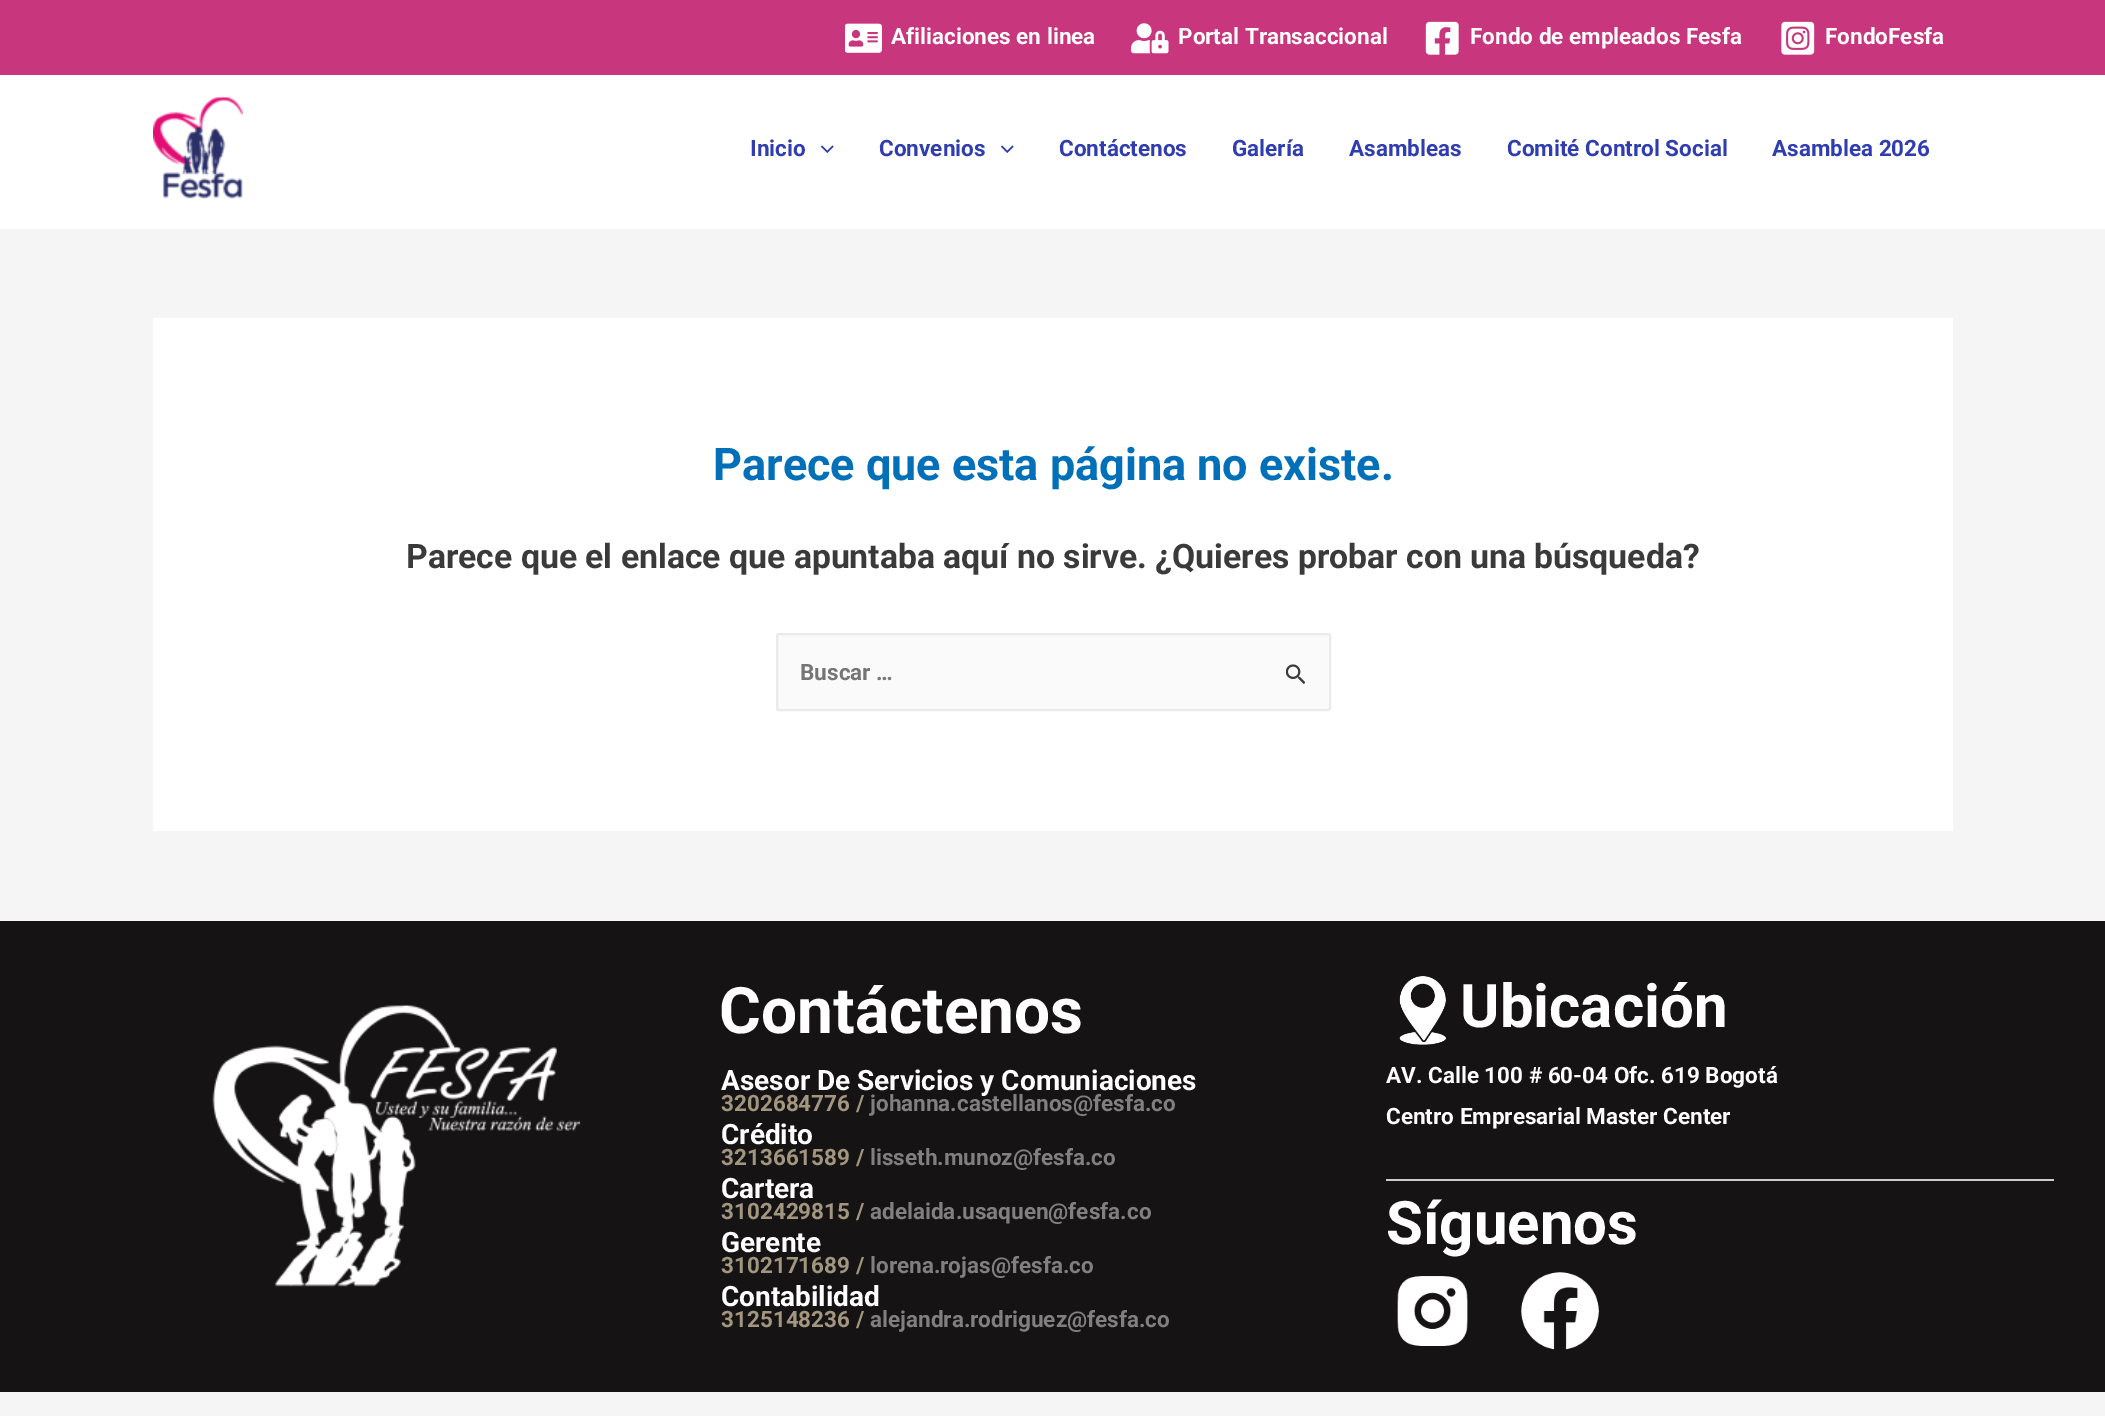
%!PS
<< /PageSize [2105 1416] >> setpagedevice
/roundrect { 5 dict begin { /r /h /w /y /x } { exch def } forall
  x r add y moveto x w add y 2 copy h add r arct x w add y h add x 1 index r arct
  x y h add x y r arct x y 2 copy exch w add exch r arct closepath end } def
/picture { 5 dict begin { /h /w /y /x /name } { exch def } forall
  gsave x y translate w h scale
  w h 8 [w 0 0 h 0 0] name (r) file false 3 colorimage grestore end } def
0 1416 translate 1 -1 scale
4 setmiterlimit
0.961 setgray
0 0 2105 1416 rectfill
0.784 0.212 0.49 setrgbcolor
0 0 2105 75 rectfill
(img1.rgb) 845 23 37 30 picture
/Roboto-Bold [22.5 0 0 -22.5 0 0] selectfont
1 setgray
891 44 moveto (Afiliaciones en linea) show
(img2.rgb) 1131 23 38 31 picture
1178 44 moveto (Portal Transaccional) show
(img3.rgb) 1425 21 34 34 picture
1470 44 moveto (Fondo de empleados Fesfa) show
(img4.rgb) 1781 21 34 34 picture
1825 44 moveto (FondoFesfa) show
0 75 2105 154 rectfill
(img5.rgb) 153 97 90 102 picture
0.184 0.239 0.69 setrgbcolor
750 156 moveto (Inicio) show
(img6.rgb) 821 145 13 8 picture
879 156 moveto (Convenios) show
(img6.rgb) 1001 145 13 8 picture
1059 156 moveto (Contáctenos) show
1232 156 moveto (Galería) show
1349 156 moveto (Asambleas) show
1507 156 moveto (Comité Control Social) show
1772 156 moveto (Asamblea 2026) show
1 setgray
153 318 1800 513 rectfill
/Roboto-Bold [45 0 0 -45 0 0] selectfont
0.004 0.439 0.725 setrgbcolor
713 480 moveto (Parece que esta página no existe.) show
/Roboto-Bold [33.75 0 0 -33.75 0 0] selectfont
0.227 setgray
406 568 moveto (Parece que el enlace que apuntaba aquí no sirve. ¿Quieres probar con una búsqueda?) show
0.98 setgray
777 634 553 76 2 roundrect gsave fill grestore
0.918 setgray
2 setlinewidth
stroke
/Roboto-Bold [22.5 0 0 -22.5 0 0] selectfont
0.459 setgray
800 680 moveto (Buscar …) show
(img7.rgb) 1286 664 19 20 picture
0.082 0.075 0.078 setrgbcolor
0 921 2105 471 rectfill
(img8.rgb) 212 1004 369 283 picture
/Roboto-Bold [64 0 0 -64 0 0] selectfont
1 setgray
719 1033 moveto (Contáctenos) show
/Roboto-Bold [28 0 0 -28 0 0] selectfont
721 1090 moveto (Asesor De Servicios y Comuniaciones) show
/Roboto-Bold [22.5 0 0 -22.5 0 0] selectfont
0.635 0.588 0.498 setrgbcolor
721 1111 moveto (3202684776 /) show
0.502 setgray
870 1111 moveto (johanna.castellanos@fesfa.co) show
/Roboto-Bold [28 0 0 -28 0 0] selectfont
1 setgray
721 1144 moveto (Crédito) show
/Roboto-Bold [22.5 0 0 -22.5 0 0] selectfont
0.635 0.588 0.498 setrgbcolor
721 1165 moveto (3213661589 /) show
0.502 setgray
870 1165 moveto (lisseth.munoz@fesfa.co) show
/Roboto-Bold [28 0 0 -28 0 0] selectfont
1 setgray
721 1198 moveto (Cartera) show
/Roboto-Bold [22.5 0 0 -22.5 0 0] selectfont
0.635 0.588 0.498 setrgbcolor
721 1219 moveto (3102429815 /) show
0.502 setgray
870 1219 moveto (adelaida.usaquen@fesfa.co) show
/Roboto-Bold [28 0 0 -28 0 0] selectfont
1 setgray
721 1252 moveto (Gerente) show
/Roboto-Bold [22.5 0 0 -22.5 0 0] selectfont
0.635 0.588 0.498 setrgbcolor
721 1273 moveto (3102171689 /) show
0.502 setgray
870 1273 moveto (lorena.rojas@fesfa.co) show
/Roboto-Bold [28 0 0 -28 0 0] selectfont
1 setgray
721 1306 moveto (Contabilidad) show
/Roboto-Bold [22.5 0 0 -22.5 0 0] selectfont
0.635 0.588 0.498 setrgbcolor
721 1327 moveto (3125148236 /) show
0.502 setgray
870 1327 moveto (alejandra.rodriguez@fesfa.co) show
(img9.rgb) 1399 976 48 69 picture
/Roboto-Bold [60 0 0 -60 0 0] selectfont
1 setgray
1460 1027 moveto (Ubicación) show
/Roboto-Bold [22.5 0 0 -22.5 0 0] selectfont
1386 1083 moveto (AV. Calle 100 # 60-04 Ofc. 619 Bogotá) show
1386 1124 moveto (Centro Empresarial Master Center) show
0.8 setgray
1386 1179 668 2 rectfill
/Roboto-Bold [60 0 0 -60 0 0] selectfont
1 setgray
1386 1244 moveto (Síguenos) show
(img10.rgb) 1397 1276 71 70 picture
(img11.rgb) 1521 1272 78 78 picture
showpage
